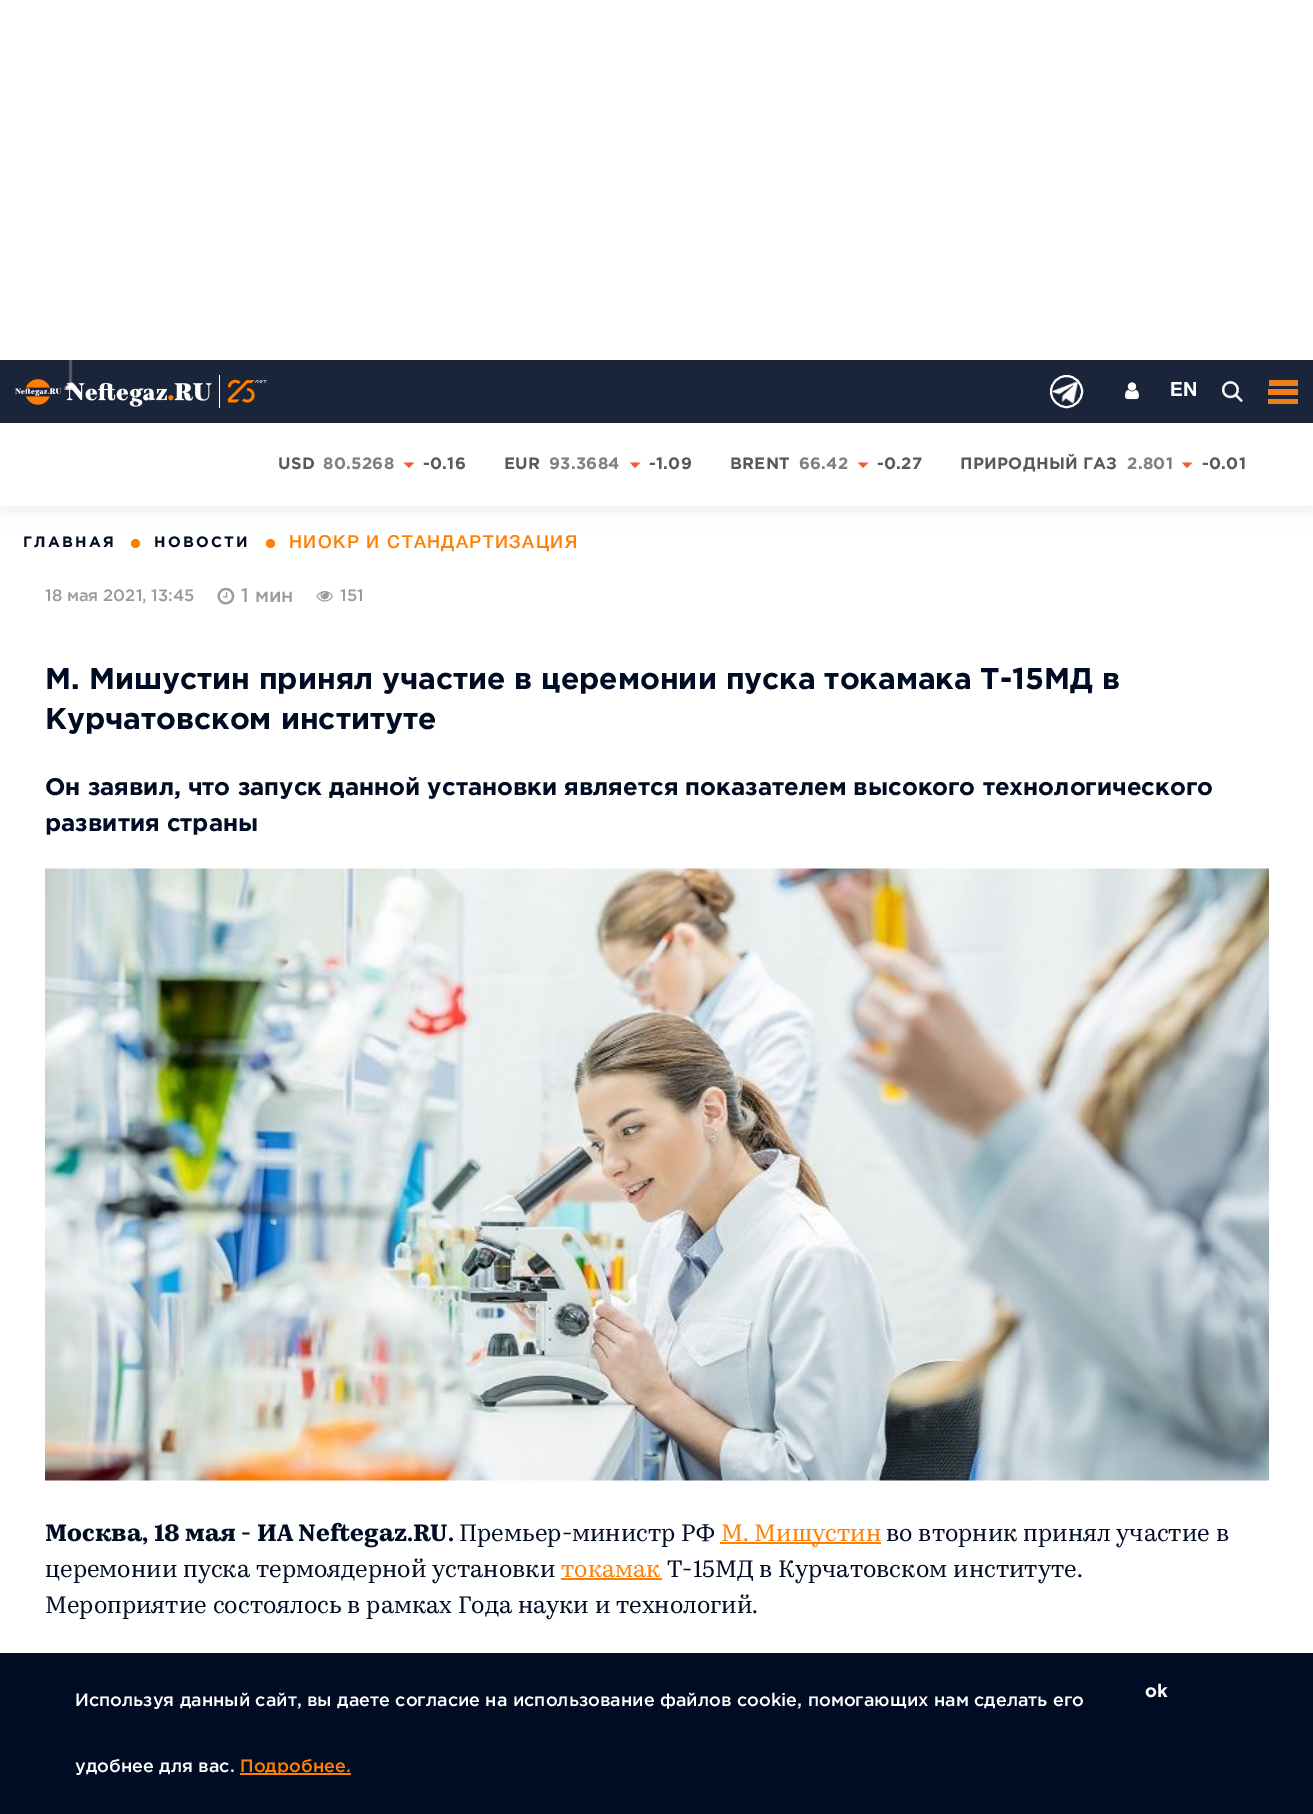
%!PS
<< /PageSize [1313 1814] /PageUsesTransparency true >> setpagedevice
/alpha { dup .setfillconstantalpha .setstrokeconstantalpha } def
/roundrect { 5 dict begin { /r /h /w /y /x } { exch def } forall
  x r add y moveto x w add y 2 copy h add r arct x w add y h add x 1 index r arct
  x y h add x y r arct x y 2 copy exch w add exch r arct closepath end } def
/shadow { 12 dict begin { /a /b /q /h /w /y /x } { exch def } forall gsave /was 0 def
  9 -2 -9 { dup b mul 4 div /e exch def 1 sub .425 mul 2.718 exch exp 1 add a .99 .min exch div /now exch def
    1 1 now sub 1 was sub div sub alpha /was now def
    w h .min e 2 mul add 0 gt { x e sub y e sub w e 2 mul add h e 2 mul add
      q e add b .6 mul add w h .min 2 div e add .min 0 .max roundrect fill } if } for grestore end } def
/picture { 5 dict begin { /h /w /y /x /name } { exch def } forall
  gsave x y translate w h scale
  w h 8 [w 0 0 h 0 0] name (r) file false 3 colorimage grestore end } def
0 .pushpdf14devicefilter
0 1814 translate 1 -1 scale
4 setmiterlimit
1 setgray
0 0 1313 1814 rectfill
1 0.498 0 setrgbcolor
newpath 135.5 543.5 4.5 0 360 arc closepath fill
newpath 270.5 543.5 4.5 0 360 arc closepath fill
gsave
newpath 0 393 moveto 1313 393 lineto 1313 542 lineto 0 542 lineto closepath 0 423 moveto 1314 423 lineto 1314 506 lineto 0 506 lineto closepath eoclip newpath
0 setgray
0 426 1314 83 0 10.5 0.07 shadow
grestore
0.102 0.141 0.227 setrgbcolor
0 360 1313 63 rectfill
(img1.rgb) 64 360 14 30 picture
(img2.rgb) 15 375 252 33 picture
(img3.rgb) 1052 381 26 22 picture
1 setgray
2 setlinewidth
newpath 1066.5 391.5 15.5 0 360 arc closepath stroke
(img4.rgb) 1125 382 14 18 picture
/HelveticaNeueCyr-Bold [19.5 0 0 -19.5 0 0] selectfont
1170 396 moveto (EN) show
(img5.rgb) 1221 381 22 21 picture
0.941 0.494 0.098 setrgbcolor
1269 380 29 6 rectfill
1268 389 30 6 rectfill
1268 399 30 5 rectfill
/Gotham-Bold [16.5 0 0 -16.5 0 0] selectfont
0.349 setgray
278 469 moveto 0.3 0 (USD) ashow
0.502 setgray
323 469 moveto 0.3 0 (80.5268) ashow
0.949 0.345 0.196 setrgbcolor
newpath 414 462.5 moveto 409 468 lineto 403.5 462.5 lineto closepath eofill
0.349 setgray
423 469 moveto 0.3 0 (-0.16) ashow
504 469 moveto 0.3 0 (EUR) ashow
0.502 setgray
549 469 moveto 0.3 0 (93.3684) ashow
0.949 0.345 0.196 setrgbcolor
newpath 640.5 462.5 moveto 635 468 lineto 630 462.5 lineto closepath eofill
0.349 setgray
649 469 moveto 0.3 0 (-1.09) ashow
730 469 moveto 0.3 0 (BRENT) ashow
0.502 setgray
799 469 moveto 0.3 0 (66.42) ashow
0.949 0.345 0.196 setrgbcolor
newpath 868.5 462.5 moveto 863 468 lineto 858 462.5 lineto closepath eofill
0.349 setgray
877 469 moveto 0.3 0 (-0.27) ashow
960 469 moveto 0.3 0 (ПРИРОДНЫЙ ГАЗ) ashow
0.502 setgray
1127 469 moveto 0.3 0 (2.801) ashow
0.949 0.345 0.196 setrgbcolor
newpath 1192.5 462.5 moveto 1187 468 lineto 1182 462.5 lineto closepath eofill
0.349 setgray
1202 469 moveto 0.3 0 (-0.01) ashow
/Gotham-Bold [15 0 0 -15 0 0] selectfont
0 0.047 0.141 setrgbcolor
23 547 moveto 2.25 0 (ГЛАВНАЯ) ashow
154 547 moveto 2.25 0 (НОВОСТИ) ashow
/HelveticaNeueCyr-Medium [18 0 0 -18 0 0] selectfont
1 0.498 0 setrgbcolor
289 548 moveto 1.4 0 (НИОКР И СТАНДАРТИЗАЦИЯ) ashow
/Gotham-Regular [16.5 0 0 -16.5 0 0] selectfont
0.604 setgray
45 601 moveto (18 мая 2021, 13:45) show
(img6.rgb) 217 587 18 18 picture
/Gotham-Regular [19.5 0 0 -19.5 0 0] selectfont
241 602 moveto (1 мин) show
(img7.rgb) 316 591 17 11 picture
/Gotham-Regular [16.5 0 0 -16.5 0 0] selectfont
340 601 moveto (151) show
/Gotham-Bold [30 0 0 -30 0 0] selectfont
0 0.047 0.141 setrgbcolor
45 689 moveto (М. Мишустин принял участие в церемонии пуска токамака Т-15МД в) show
45 729 moveto (Курчатовском институте) show
/Gotham-Bold [24 0 0 -24 0 0] selectfont
45 795 moveto (Он заявил, что запуск данной установки является показателем высокого технологического) show
45 831 moveto (развития страны) show
(img8.rgb) 45 868 1224 613 picture
/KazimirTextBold-Bold [24 0 0 -24 0 0] selectfont
45 1541 moveto (Москва, 18 мая - ИА Neftegaz.RU.) show
/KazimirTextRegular-Regular [24 0 0 -24 0 0] selectfont
459 1541 moveto (Премьер-министр РФ) show
1 0.498 0 setrgbcolor
720 1542 161 2 rectfill
721 1541 moveto (М. Мишустин) show
0 0.047 0.141 setrgbcolor
886 1541 moveto (во вторник принял участие в) show
45 1577 moveto (церемонии пуска термоядерной установки) show
1 0.498 0 setrgbcolor
561 1577 moveto (токамак) show
561 1578 101 2 rectfill
0 0.047 0.141 setrgbcolor
667 1577 moveto (Т-15МД в Курчатовском институте.) show
45 1613 moveto (Мероприятие состоялось в рамках Года науки и технологий.) show
0 1653 1313 161 rectfill
/Gotham-Bold [18 0 0 -18 0 0] selectfont
1 setgray
1145 1697 moveto (ok) show
/Gotham-Regular [18 0 0 -18 0 0] selectfont
75 1706 moveto (Используя данный сайт, вы даете согласие на использование файлов cookie, помогающих нам сделать его) show
75 1772 moveto (удобнее для вас.) show
1 0.498 0 setrgbcolor
240 1773 111 2 rectfill
240 1772 moveto (Подробнее.) show
.poppdf14devicefilter showpage
